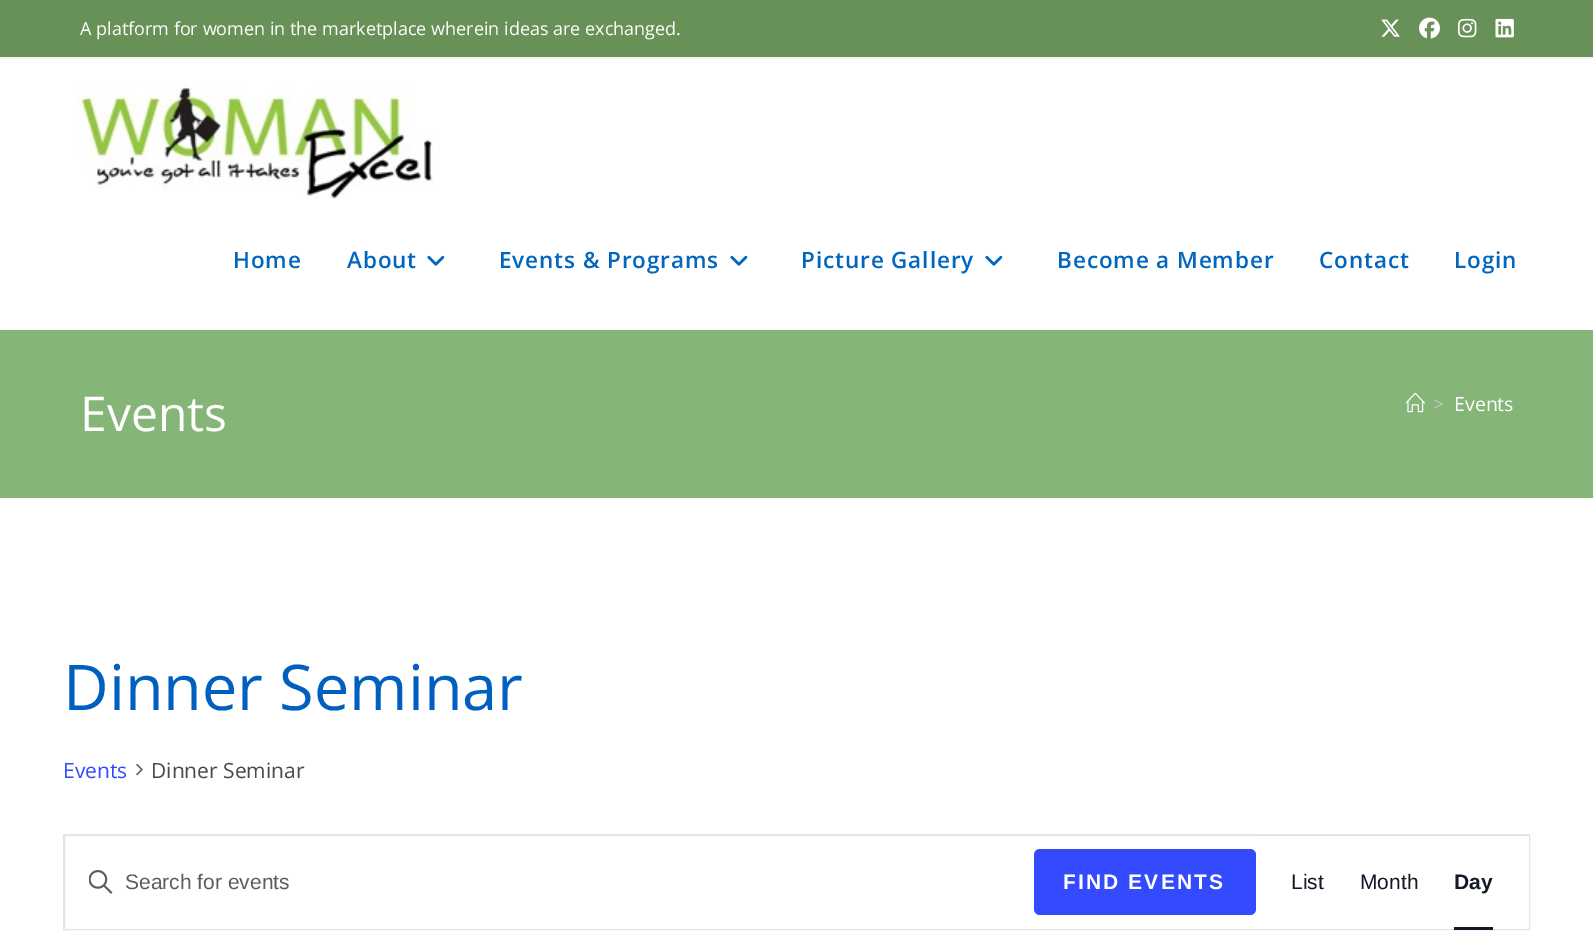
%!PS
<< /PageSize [1593 938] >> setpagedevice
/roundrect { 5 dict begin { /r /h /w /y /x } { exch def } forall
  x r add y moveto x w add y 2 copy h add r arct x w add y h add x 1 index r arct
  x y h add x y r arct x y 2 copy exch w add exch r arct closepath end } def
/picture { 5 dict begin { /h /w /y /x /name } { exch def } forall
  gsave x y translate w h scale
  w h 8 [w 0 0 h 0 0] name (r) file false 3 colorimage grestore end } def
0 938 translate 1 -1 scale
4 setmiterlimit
1 setgray
0 0 1593 938 rectfill
0.408 0.569 0.345 setrgbcolor
0 0 1593 57 rectfill
0.945 setgray
0 57 1593 2 rectfill
/OpenSans-Regular [18 0 0 -18 0 0] selectfont
1 setgray
80 35 moveto (A platform for women in the marketplace wherein ideas are exchanged.) show
(img1.rgb) 1381 19 19 18 picture
(img2.rgb) 1419 17 21 22 picture
(img3.rgb) 1458 18 19 20 picture
(img4.rgb) 1495 18 19 20 picture
(img5.rgb) 75 81 358 118 picture
/OpenSans-SemiBold [22.5 0 0 -22.5 0 0] selectfont
0 0.4 0.749 setrgbcolor
233 268 moveto 0.9 0 (Home) ashow
347 268 moveto 0.9 0 (About) ashow
(img6.rgb) 427 255 18 11 picture
499 268 moveto 0.9 0 (Events & Programs) ashow
(img6.rgb) 730 255 18 11 picture
801 268 moveto 0.9 0 (Picture Gallery) ashow
(img6.rgb) 985 255 18 11 picture
1057 268 moveto 0.9 0 (Become a Member) ashow
1319 268 moveto 0.9 0 (Contact) ashow
1454 268 moveto 0.9 0 (Login) ashow
0.522 0.71 0.467 setrgbcolor
0 330 1593 168 rectfill
/OpenSans-Regular [48 0 0 -48 0 0] selectfont
1 setgray
80 431 moveto (Events) show
(img7.rgb) 1406 392 19 21 picture
/OpenSans-Regular [19.5 0 0 -19.5 0 0] selectfont
0.776 setgray
1433 411 moveto (>) show
1 setgray
1454 411 moveto (Events) show
/OpenSans-Regular [63 0 0 -63 0 0] selectfont
0 0.373 0.749 setrgbcolor
63 710 moveto (Dinner Seminar) show
/OpenSans-Regular [21 0 0 -21 0 0] selectfont
0.2 0.29 1 setrgbcolor
63 778 moveto (Events) show
(img8.rgb) 136 764 7 12 picture
0.29 setgray
151 778 moveto (Dinner Seminar) show
0.894 setgray
2 setlinewidth
64 835 1465 94 rectstroke
1 setgray
65 928 1191 1 rectfill
(img9.rgb) 89 870 24 24 picture
/LiberationSans-Regular [21 0 0 -21 0 0] selectfont
0.365 setgray
125 889 moveto (Search for events) show
0.2 0.29 1 setrgbcolor
1034 849 222 66 6 roundrect fill
/LiberationSans-Bold [21 0 0 -21 0 0] selectfont
1 setgray
1063 889 moveto 2.1 0 (FIND EVENTS) ashow
1256 836 273 93 rectfill
/LiberationSans-Regular [21 0 0 -21 0 0] selectfont
0.078 0.094 0.153 setrgbcolor
1291 889 moveto (List) show
1360 889 moveto (Month) show
/LiberationSans-Bold [21 0 0 -21 0 0] selectfont
1454 889 moveto (Day) show
1454 927 39 3 rectfill
showpage
